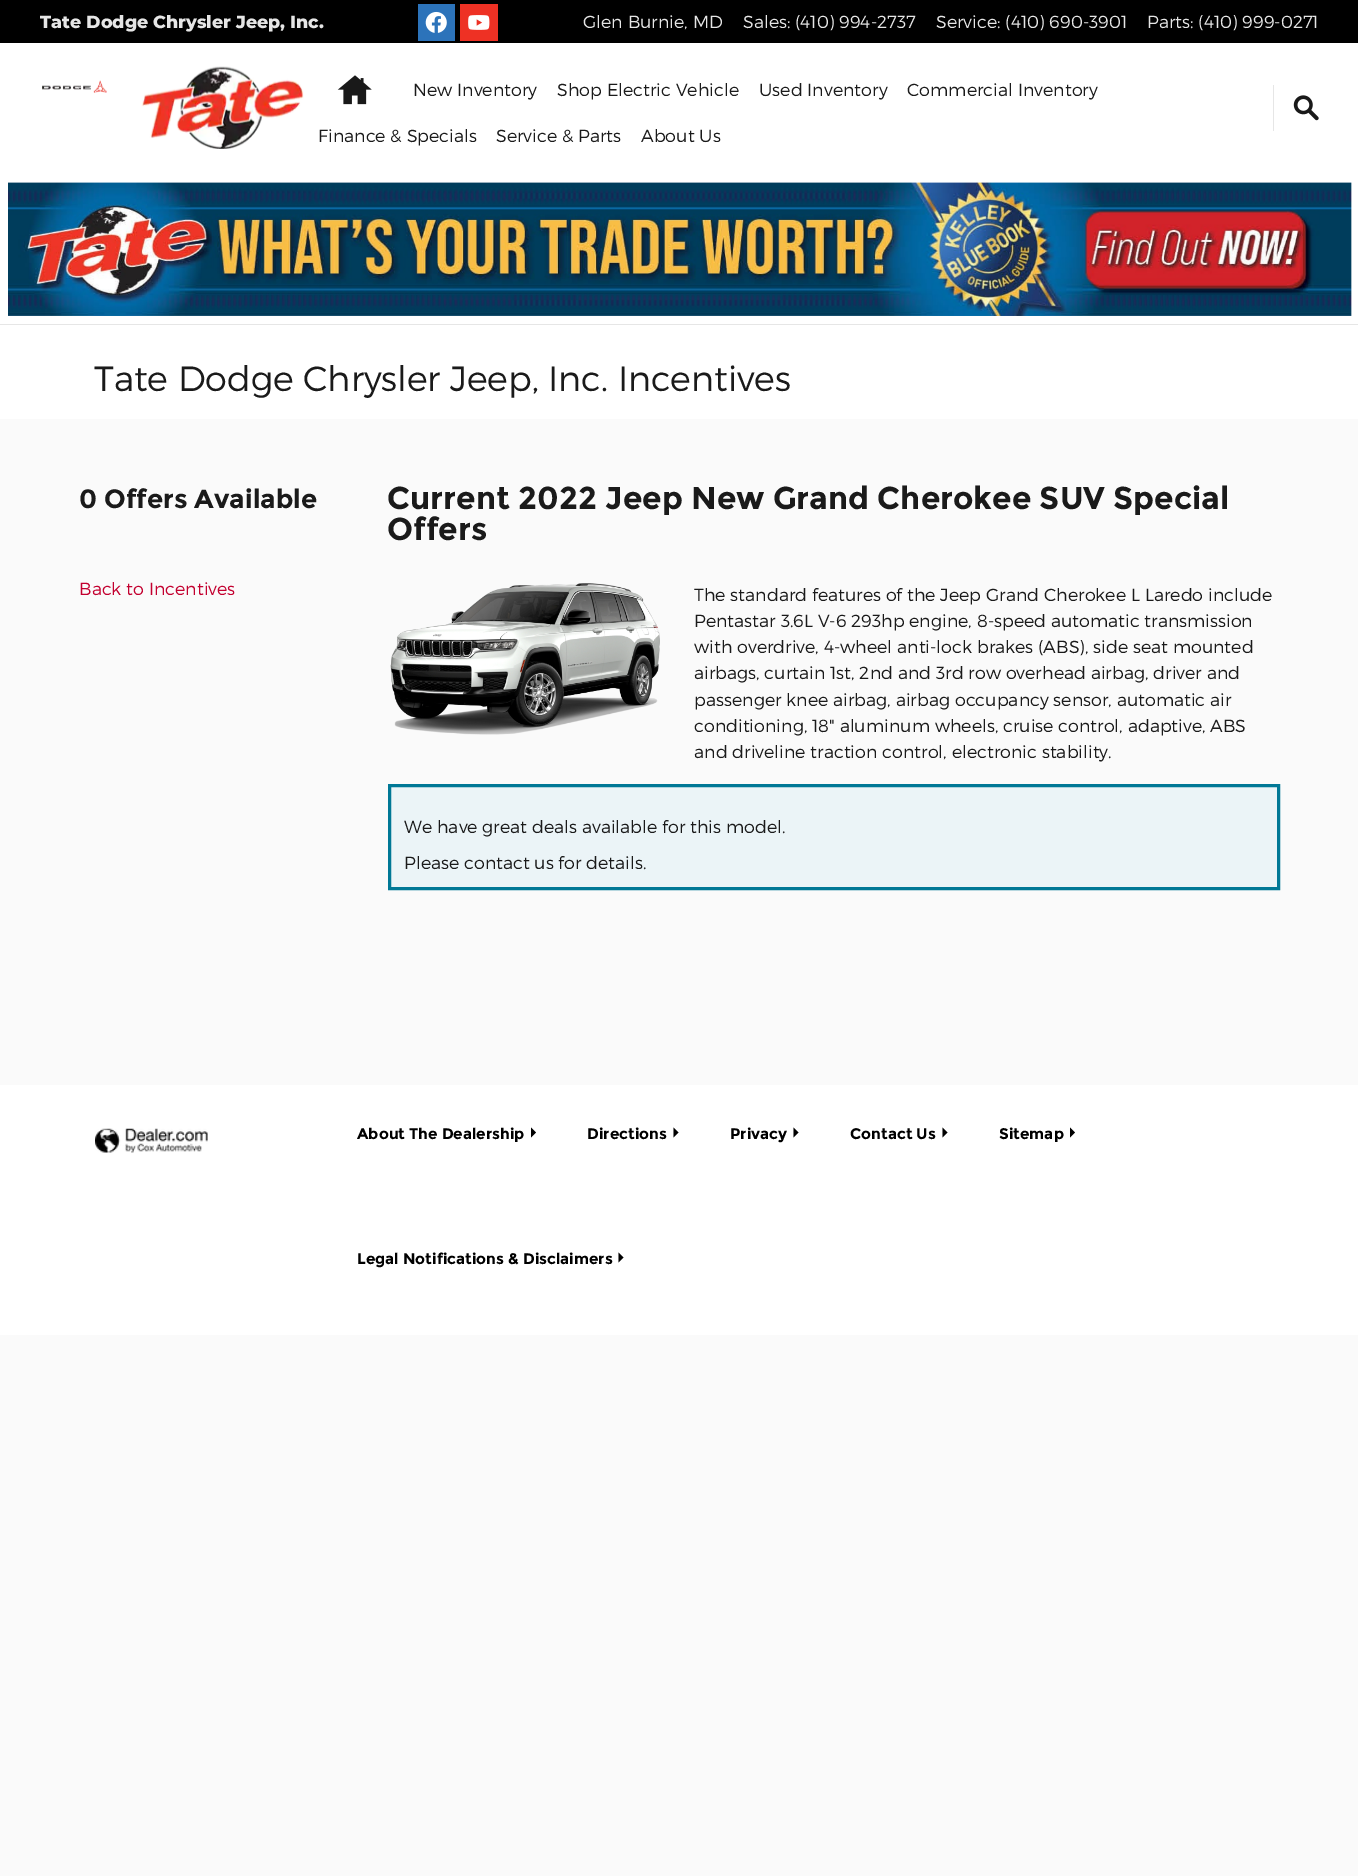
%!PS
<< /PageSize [1358 1876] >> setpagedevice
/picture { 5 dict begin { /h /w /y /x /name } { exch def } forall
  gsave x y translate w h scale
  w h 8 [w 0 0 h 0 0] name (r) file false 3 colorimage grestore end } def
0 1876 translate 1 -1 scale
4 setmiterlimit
0.98 setgray
0 0 1358 1876 rectfill
1 setgray
0 43 1358 281 rectfill
0.902 setgray
0 324 1358 1 rectfill
0 setgray
0 0 1358 43 rectfill
(img1.rgb) 418 4 37 37 picture
(img2.rgb) 460 4 38 37 picture
/Montserrat-ExtraBold [17.5 0 0 -17.5 0 0] selectfont
0.902 setgray
40 28 moveto (Tate Dodge Chrysler Jeep, Inc.) show
/Montserrat-Light [17.5 0 0 -17.5 0 0] selectfont
583 28 moveto (Glen Burnie, MD) show
743 28 moveto (Sales: \(410\) 994-2737) show
936 28 moveto (Service: \(410\) 690-3901) show
1147 28 moveto (Parts: \(410\) 999-0271) show
(img3.rgb) 42 80 65 13 picture
(img4.rgb) 141 66 163 83 picture
(img5.rgb) 337 75 35 30 picture
0.102 setgray
413 96 moveto (New Inventory) show
557 96 moveto (Shop Electric Vehicle) show
759 96 moveto (Used Inventory) show
907 96 moveto (Commercial Inventory) show
318 142 moveto (Finance & Specials) show
496 142 moveto (Service & Parts) show
641 142 moveto (About Us) show
0.902 setgray
1273 85 1 46 rectfill
(img6.rgb) 1293 95 26 26 picture
(img7.rgb) 8 182 1344 134 picture
1 setgray
0 325 1358 94 rectfill
/Montserrat-Light [35 0 0 -35 0 0] selectfont
0.102 setgray
94 391 moveto (Tate Dodge Chrysler Jeep, Inc. Incentives) show
/Montserrat-Bold [26.25 0 0 -26.25 0 0] selectfont
79 508 moveto (0 Offers Available) show
/Montserrat-Light [17.5 0 0 -17.5 0 0] selectfont
0.765 0 0.184 setrgbcolor
79 595 moveto (Back to Incentives) show
/Montserrat-Bold [31.5 0 0 -31.5 0 0] selectfont
0.102 setgray
387 509 moveto (Current 2022 Jeep New Grand Cherokee SUV Special) show
387 540 moveto (Offers) show
(img8.rgb) 390 583 270 152 picture
/Montserrat-Light [17.5 0 0 -17.5 0 0] selectfont
694 601 moveto (The standard features of the Jeep Grand Cherokee L Laredo include) show
694 627 moveto (Pentastar 3.6L V-6 293hp engine, 8-speed automatic transmission) show
694 653 moveto (with overdrive, 4-wheel anti-lock brakes \(ABS\), side seat mounted) show
694 679 moveto (airbags, curtain 1st, 2nd and 3rd row overhead airbag, driver and) show
694 706 moveto (passenger knee airbag, airbag occupancy sensor, automatic air) show
694 732 moveto (conditioning, 18" aluminum wheels, cruise control, adaptive, ABS) show
694 758 moveto (and driveline traction control, electronic stability.) show
0.922 0.957 0.969 setrgbcolor
newpath 389.5 785.5 moveto 1278.5 785.5 lineto 1278.5 888.5 lineto 389.5 888.5 lineto closepath gsave fill grestore
0 0.471 0.588 setrgbcolor
3 setlinewidth
stroke
0.102 setgray
404 833 moveto (We have great deals available for this model.) show
404 869 moveto (Please contact us for details.) show
1 setgray
0 1085 1358 250 rectfill
(img9.rgb) 95 1128 113 25 picture
/Montserrat-Bold [15.3 0 0 -15.3 0 0] selectfont
0 setgray
357 1139 moveto (About The Dealership) show
newpath 531 1127.5 moveto 531 1137.5 lineto 536 1132.5 lineto closepath fill
587 1139 moveto (Directions) show
newpath 673.5 1127.5 moveto 673.5 1137.5 lineto 678.5 1132.5 lineto closepath fill
730 1139 moveto (Privacy) show
newpath 793.5 1127.5 moveto 793.5 1137.5 lineto 798.5 1132.5 lineto closepath fill
850 1139 moveto (Contact Us) show
newpath 942.5 1127.5 moveto 942.5 1137.5 lineto 947.5 1132.5 lineto closepath fill
999 1139 moveto (Sitemap) show
newpath 1070 1127.5 moveto 1070 1137.5 lineto 1075 1132.5 lineto closepath fill
357 1264 moveto (Legal Notifications & Disclaimers) show
newpath 618.5 1252.5 moveto 618.5 1262.5 lineto 623.5 1257.5 lineto closepath fill
showpage
